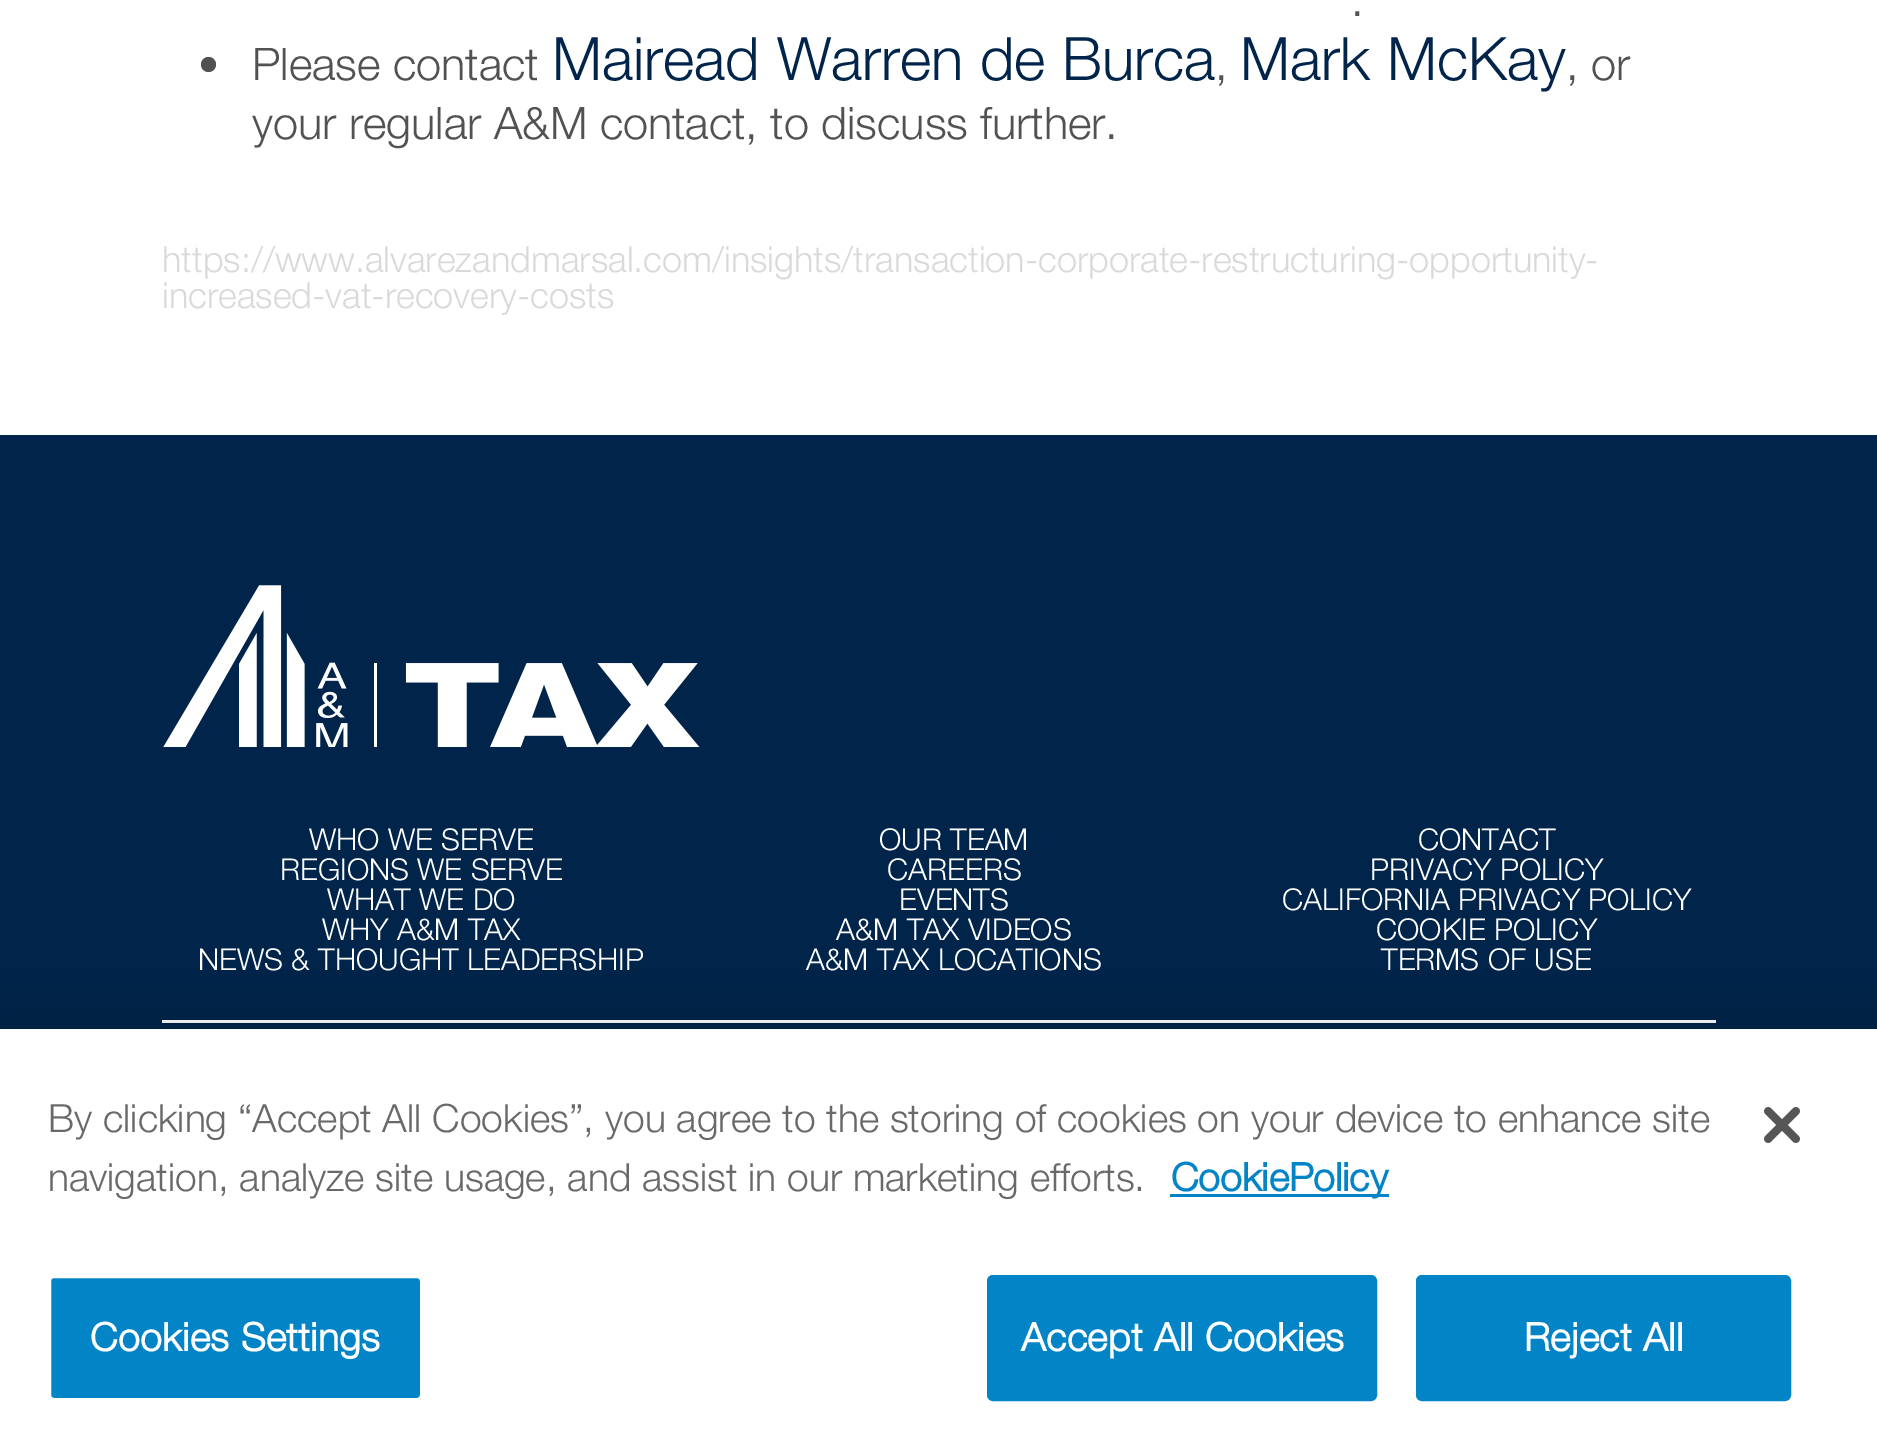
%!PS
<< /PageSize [1877 1449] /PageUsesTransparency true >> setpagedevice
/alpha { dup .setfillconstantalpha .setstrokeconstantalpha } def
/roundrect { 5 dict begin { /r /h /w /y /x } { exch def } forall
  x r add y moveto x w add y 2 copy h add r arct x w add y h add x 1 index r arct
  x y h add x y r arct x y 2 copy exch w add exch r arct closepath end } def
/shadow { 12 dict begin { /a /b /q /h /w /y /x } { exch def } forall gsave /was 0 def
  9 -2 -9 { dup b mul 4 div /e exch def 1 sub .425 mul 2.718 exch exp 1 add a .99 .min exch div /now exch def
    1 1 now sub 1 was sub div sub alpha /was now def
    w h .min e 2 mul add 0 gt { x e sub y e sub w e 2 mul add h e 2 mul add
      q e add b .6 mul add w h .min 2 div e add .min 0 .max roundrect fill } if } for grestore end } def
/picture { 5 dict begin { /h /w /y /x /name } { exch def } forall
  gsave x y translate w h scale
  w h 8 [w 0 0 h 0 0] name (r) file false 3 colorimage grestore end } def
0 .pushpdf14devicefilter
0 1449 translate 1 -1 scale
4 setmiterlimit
1 setgray
0 0 1877 1449 rectfill
/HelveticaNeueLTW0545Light-Light [45 0 0 -45 0 0] selectfont
0.322 setgray
1351 16 moveto (.) show
newpath 208.5 64.5 7.5 0 360 arc closepath fill
252 80 moveto (Please contact) show
/HelveticaNeueLTW0545Light-Light [60 0 0 -60 0 0] selectfont
0 0.141 0.29 setrgbcolor
552 80 moveto (Mairead Warren de Burca) show
1240 80 moveto (Mark McKay) show
/HelveticaNeueLTW0545Light-Light [45 0 0 -45 0 0] selectfont
0.322 setgray
1566 80 moveto (, or) show
1215 80 moveto (,) show
252 139 moveto (your regular A&M contact, to discuss further.) show
/HelveticaNeueLTW0545Light-Light [36 0 0 -36 0 0] selectfont
0.851 setgray
162 272 moveto (https://www.alvarezandmarsal.com/insights/transaction-corporate-restructuring-opportunity-) show
162 308 moveto (increased-vat-recovery-costs) show
0 0.141 0.29 setrgbcolor
0 435 1877 594 rectfill
(img1.rgb) 163 585 537 162 picture
/HelveticaNeueLTW0545Light-Light [30 0 0 -30 0 0] selectfont
1 setgray
309 850 moveto (WHO WE SERVE) show
879 850 moveto (OUR TEAM) show
1418 850 moveto (CONTACT) show
280 880 moveto (REGIONS WE SERVE) show
887 880 moveto (CAREERS) show
1370 880 moveto (PRIVACY POLICY) show
327 910 moveto (WHAT WE DO) show
899 910 moveto (EVENTS) show
1282 910 moveto (CALIFORNIA PRIVACY POLICY) show
322 940 moveto (WHY A&M TAX) show
836 940 moveto (A&M TAX VIDEOS) show
1376 940 moveto (COOKIE POLICY) show
198 970 moveto (NEWS & THOUGHT LEADERSHIP) show
806 970 moveto (A&M TAX LOCATIONS) show
1381 970 moveto (TERMS OF USE) show
162 1020 1554 3 rectfill
0 setgray
0 1029 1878 420 0 27 0.2 shadow
1 setgray
0 1029 1877 420 rectfill
/HelveticaNeueLTW0545Light-Light [39 0 0 -39 0 0] selectfont
0.412 setgray
48 1132 moveto (By clicking “Accept All Cookies”, you agree to the storing of cookies on your device to enhance site) show
48 1191 moveto (navigation, analyze site usage, and assist in our marketing efforts.) show
0.008 0.518 0.78 setrgbcolor
1170 1194 219 3 rectfill
/HelveticaNeueLTW0545Light-Bold [39 0 0 -39 0 0] selectfont
1171 1191 moveto (CookiePolicy) show
49.5 1276.5 372 123 4.5 roundrect gsave fill grestore
1 setgray
3 setlinewidth
stroke
90 1351 moveto 0.4 0 (Cookies Settings) ashow
0.008 0.518 0.78 setrgbcolor
988.5 1276.5 387 123 4.5 roundrect gsave fill grestore
stroke
1 setgray
1021 1351 moveto 0.4 0 (Accept All Cookies) ashow
0.008 0.518 0.78 setrgbcolor
1417.5 1276.5 372 123 4.5 roundrect gsave fill grestore
stroke
1 setgray
1524 1351 moveto 0.4 0 (Reject All) ashow
(img2.rgb) 1764 1107 36 36 picture
.poppdf14devicefilter showpage
